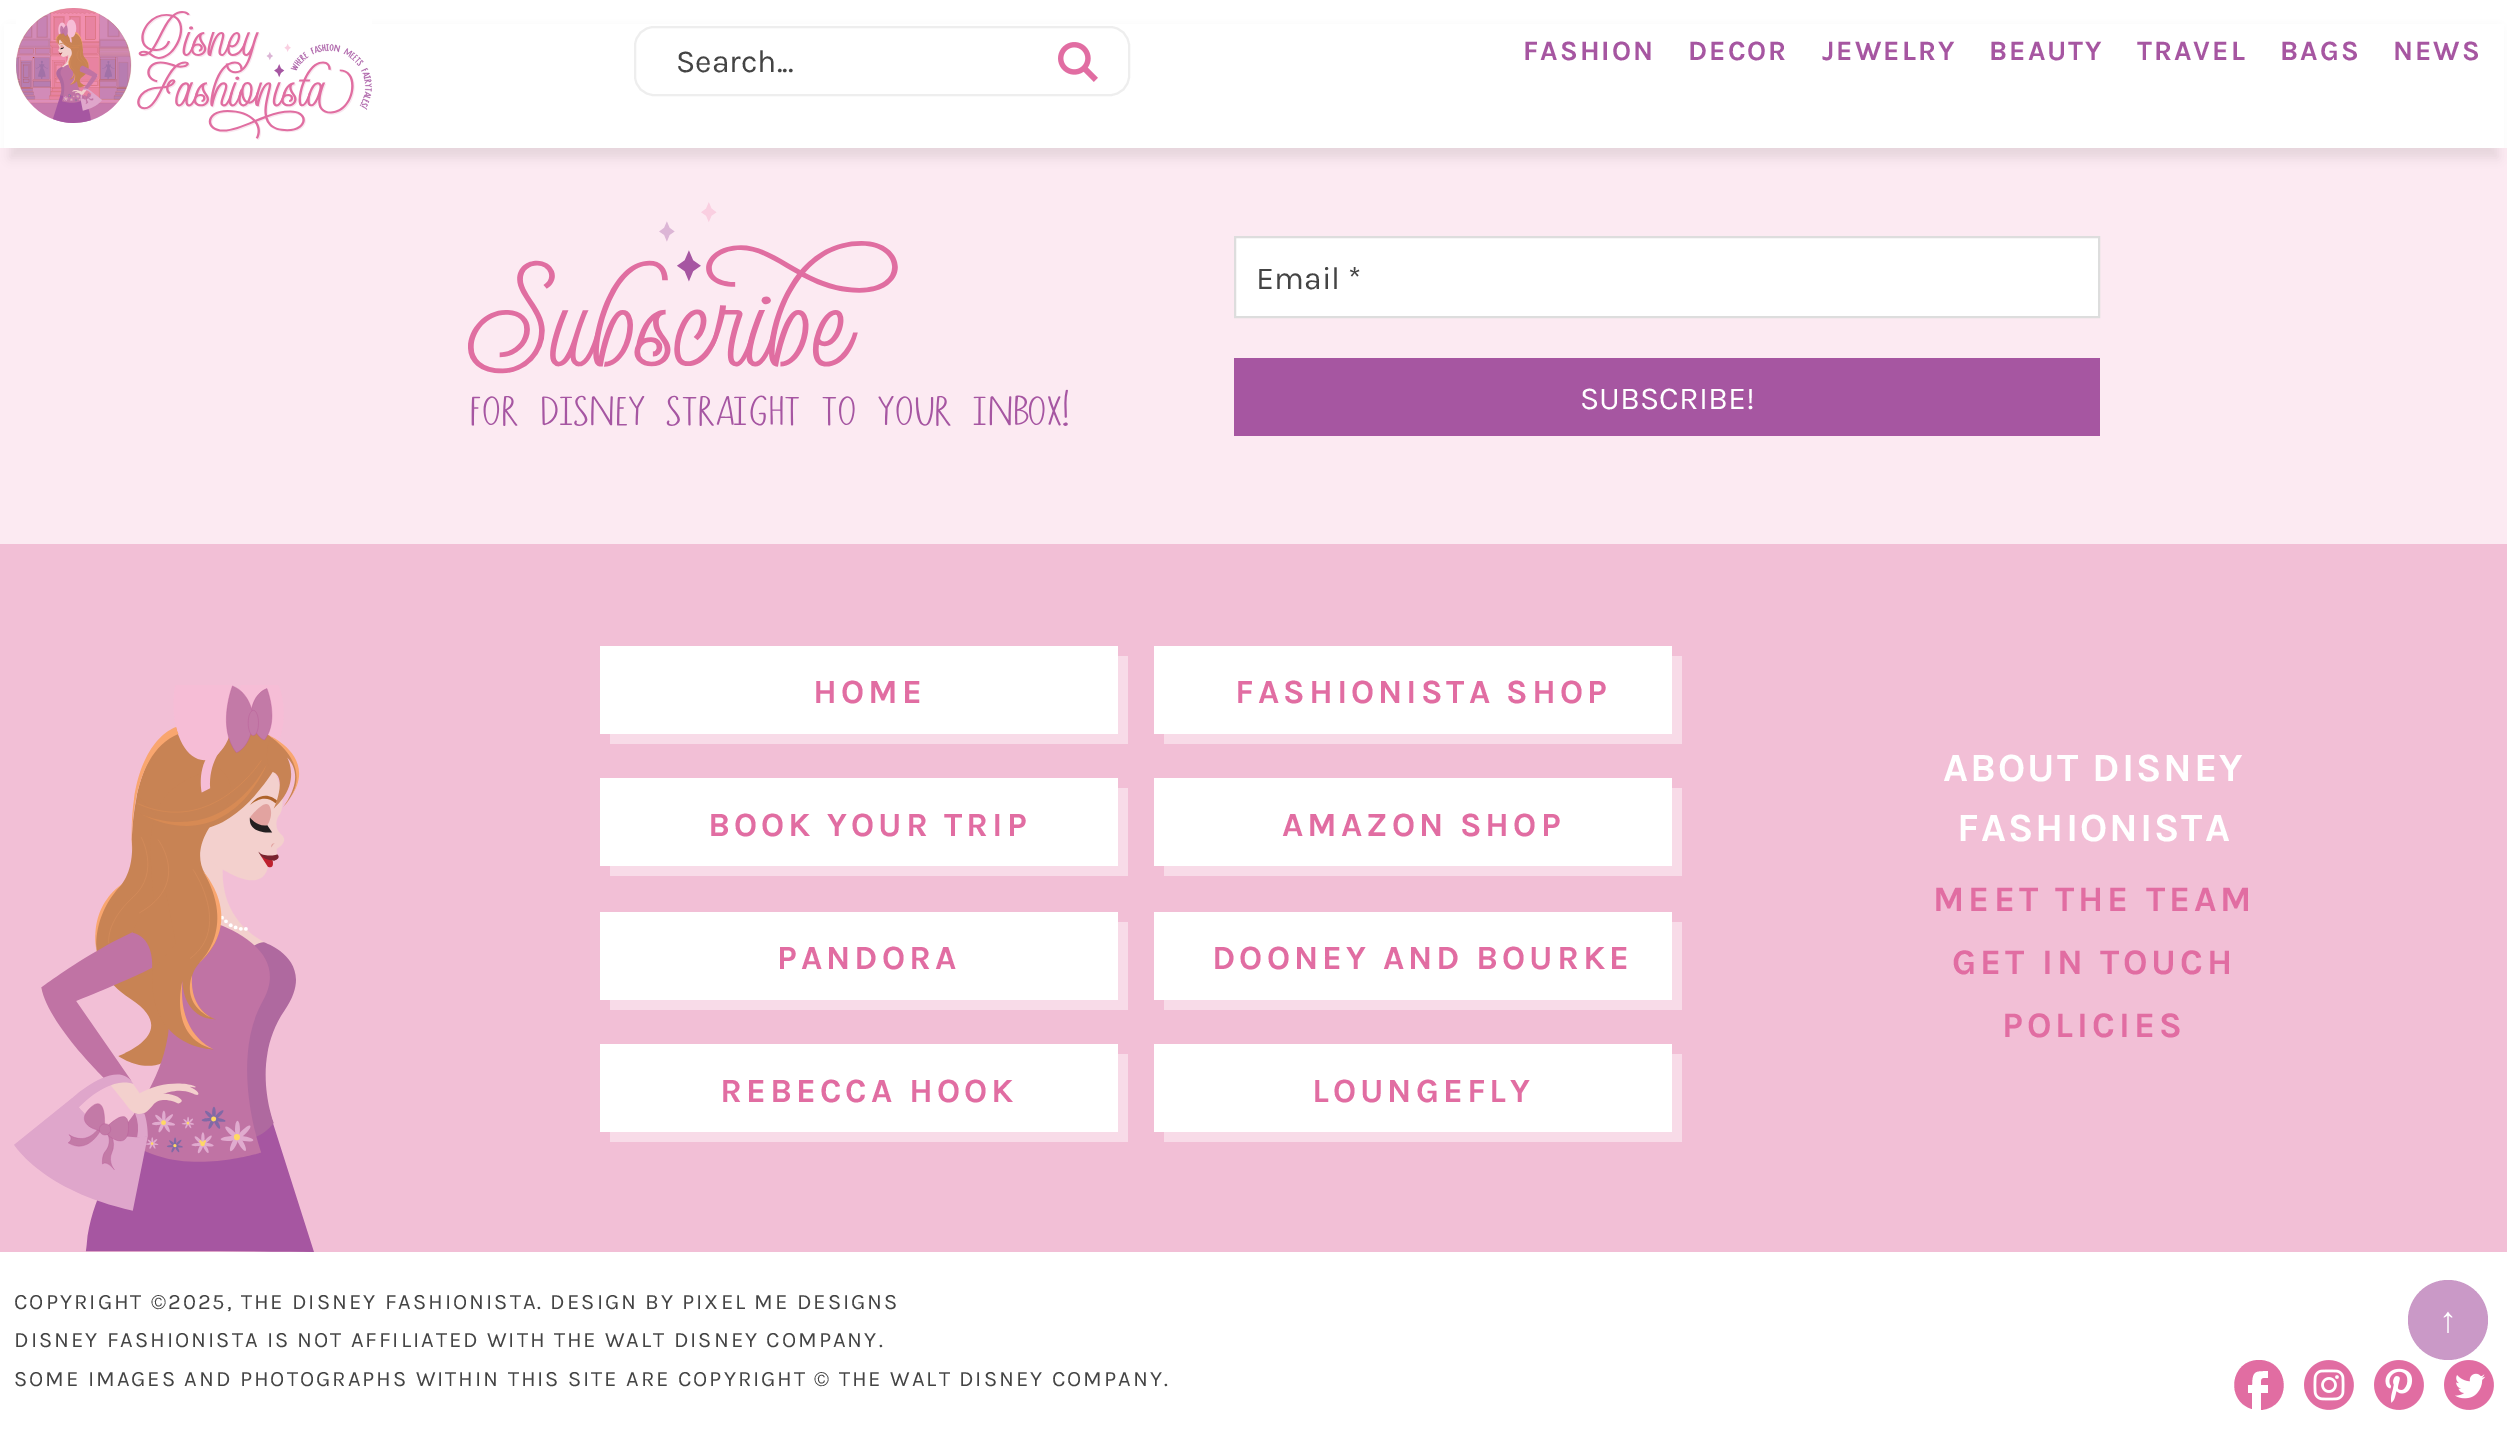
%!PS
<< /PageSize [2507 1439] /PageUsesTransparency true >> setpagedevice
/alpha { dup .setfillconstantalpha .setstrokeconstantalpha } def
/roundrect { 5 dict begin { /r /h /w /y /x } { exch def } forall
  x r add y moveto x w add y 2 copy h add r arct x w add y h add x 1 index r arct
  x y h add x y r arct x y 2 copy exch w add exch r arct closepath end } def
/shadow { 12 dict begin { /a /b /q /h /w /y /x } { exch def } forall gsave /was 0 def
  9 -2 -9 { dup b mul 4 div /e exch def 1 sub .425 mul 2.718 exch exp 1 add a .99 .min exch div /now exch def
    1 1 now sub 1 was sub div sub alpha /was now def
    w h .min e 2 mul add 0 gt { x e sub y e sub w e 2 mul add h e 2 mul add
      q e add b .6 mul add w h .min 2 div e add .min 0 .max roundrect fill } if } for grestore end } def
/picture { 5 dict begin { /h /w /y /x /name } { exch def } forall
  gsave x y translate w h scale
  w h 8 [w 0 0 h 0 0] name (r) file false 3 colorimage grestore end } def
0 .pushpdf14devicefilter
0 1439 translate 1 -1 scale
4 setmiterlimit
1 setgray
0 0 2507 1439 rectfill
0.988 0.918 0.949 setrgbcolor
0 148 2507 396 rectfill
0 setgray
10 30 2488 128 0 5 0.08 shadow
1 setgray
4 24 2500 124 rectfill
(img1.rgb) 16 8 356 132 picture
0.933 setgray
2 setlinewidth
635 27 494 68 19 roundrect stroke
/Karla-Regular [32 0 0 -32 0 0] selectfont
0.267 setgray
676 72 moveto (Search...) show
(img2.rgb) 1058 42 40 40 picture
/Karla-Bold [28 0 0 -28 0 0] selectfont
0.651 0.337 0.631 setrgbcolor
1523 60 moveto 2 0 (FASHION) ashow
1688 60 moveto 2 0 (DECOR) ashow
1822 60 moveto 2 0 (JEWELRY) ashow
1989 60 moveto 2 0 (BEAUTY) ashow
2137 60 moveto 2 0 (TRAVEL) ashow
2280 60 moveto 2 0 (BAGS) ashow
2393 60 moveto 2 0 (NEWS) ashow
(img3.rgb) 468 202 600 224 picture
1 setgray
newpath 1235 237 moveto 2099 237 lineto 2099 317 lineto 1235 317 lineto closepath gsave fill grestore
0.867 setgray
stroke
/Karla-Regular [32 0 0 -32 0 0] selectfont
0.267 setgray
1256 289 moveto (Email *) show
0.651 0.337 0.631 setrgbcolor
1234 358 866 78 rectfill
1 setgray
1580 409 moveto (SUBSCRIBE!) show
0.949 0.749 0.839 setrgbcolor
0 544 2507 708 rectfill
(img4.rgb) 14 685 300 567 picture
0.973 0.859 0.91 setrgbcolor
610 656 518 88 rectfill
1 setgray
600 646 518 88 rectfill
/Karla-Bold [34 0 0 -34 0 0] selectfont
0.882 0.427 0.635 setrgbcolor
813 703 moveto 4 0 (HOME) ashow
0.973 0.859 0.91 setrgbcolor
1164 656 518 88 rectfill
1 setgray
1154 646 518 88 rectfill
0.882 0.427 0.635 setrgbcolor
1235 703 moveto 4 0 (FASHIONISTA SHOP) ashow
0.973 0.859 0.91 setrgbcolor
610 788 518 88 rectfill
1 setgray
600 778 518 88 rectfill
0.882 0.427 0.635 setrgbcolor
708 836 moveto 4 0 (BOOK YOUR TRIP) ashow
0.973 0.859 0.91 setrgbcolor
1164 788 518 88 rectfill
1 setgray
1154 778 518 88 rectfill
0.882 0.427 0.635 setrgbcolor
1282 836 moveto 4 0 (AMAZON SHOP) ashow
0.973 0.859 0.91 setrgbcolor
610 922 518 88 rectfill
1 setgray
600 912 518 88 rectfill
0.882 0.427 0.635 setrgbcolor
777 969 moveto 4 0 (PANDORA) ashow
0.973 0.859 0.91 setrgbcolor
1164 922 518 88 rectfill
1 setgray
1154 912 518 88 rectfill
0.882 0.427 0.635 setrgbcolor
1212 969 moveto 4 0 (DOONEY AND BOURKE) ashow
0.973 0.859 0.91 setrgbcolor
610 1054 518 88 rectfill
1 setgray
600 1044 518 88 rectfill
0.882 0.427 0.635 setrgbcolor
720 1102 moveto 4 0 (REBECCA HOOK) ashow
0.973 0.859 0.91 setrgbcolor
1164 1054 518 88 rectfill
1 setgray
1154 1044 518 88 rectfill
0.882 0.427 0.635 setrgbcolor
1312 1102 moveto 4 0 (LOUNGEFLY) ashow
/Karla-Bold [40 0 0 -40 0 0] selectfont
1 setgray
1943 781 moveto 2 0 (ABOUT DISNEY) ashow
1957 841 moveto 2 0 (FASHIONISTA) ashow
/Karla-Bold [36 0 0 -36 0 0] selectfont
0.882 0.427 0.635 setrgbcolor
1933 911 moveto 4 0 (MEET THE TEAM) ashow
1952 974 moveto 4 0 (GET IN TOUCH) ashow
2002 1037 moveto 4 0 (POLICIES) ashow
/Karla-Regular [22 0 0 -22 0 0] selectfont
0.267 setgray
14 1309 moveto 2 0 (COPYRIGHT ©2025, THE DISNEY FASHIONISTA. DESIGN BY PIXEL ME DESIGNS) ashow
14 1347 moveto 2 0 (DISNEY FASHIONISTA IS NOT AFFILIATED WITH THE WALT DISNEY COMPANY.) ashow
14 1386 moveto 2 0 (SOME IMAGES AND PHOTOGRAPHS WITHIN THIS SITE ARE COPYRIGHT © THE WALT DISNEY COMPANY.) ashow
0.882 0.427 0.635 setrgbcolor
newpath 2259 1360 moveto 2290 1360 2293 1407 2261 1410 curveto 2261 1393 lineto 2268 1393 lineto 2268 1385 lineto 2261 1385 lineto 2261 1378 2261 1378 2268 1378 curveto 2268 1371 lineto 2256 1371 2252 1370 2252 1385 curveto 2248 1385 lineto 2248 1393 lineto 2252 1393 lineto 2252 1409 lineto 2225 1401 2230 1360 2259 1360 curveto closepath fill
(img5.rgb) 2304 1360 50 50 picture
(img6.rgb) 2374 1360 50 50 picture
(img7.rgb) 2444 1360 50 50 picture
0.792 0.6 0.78 setrgbcolor
newpath 2448 1320 40 0 360 arc closepath fill
/LiberationSerif-Regular [36 0 0 -36 0 0] selectfont
1 setgray
2439 1332 moveto (↑) show
.poppdf14devicefilter showpage
